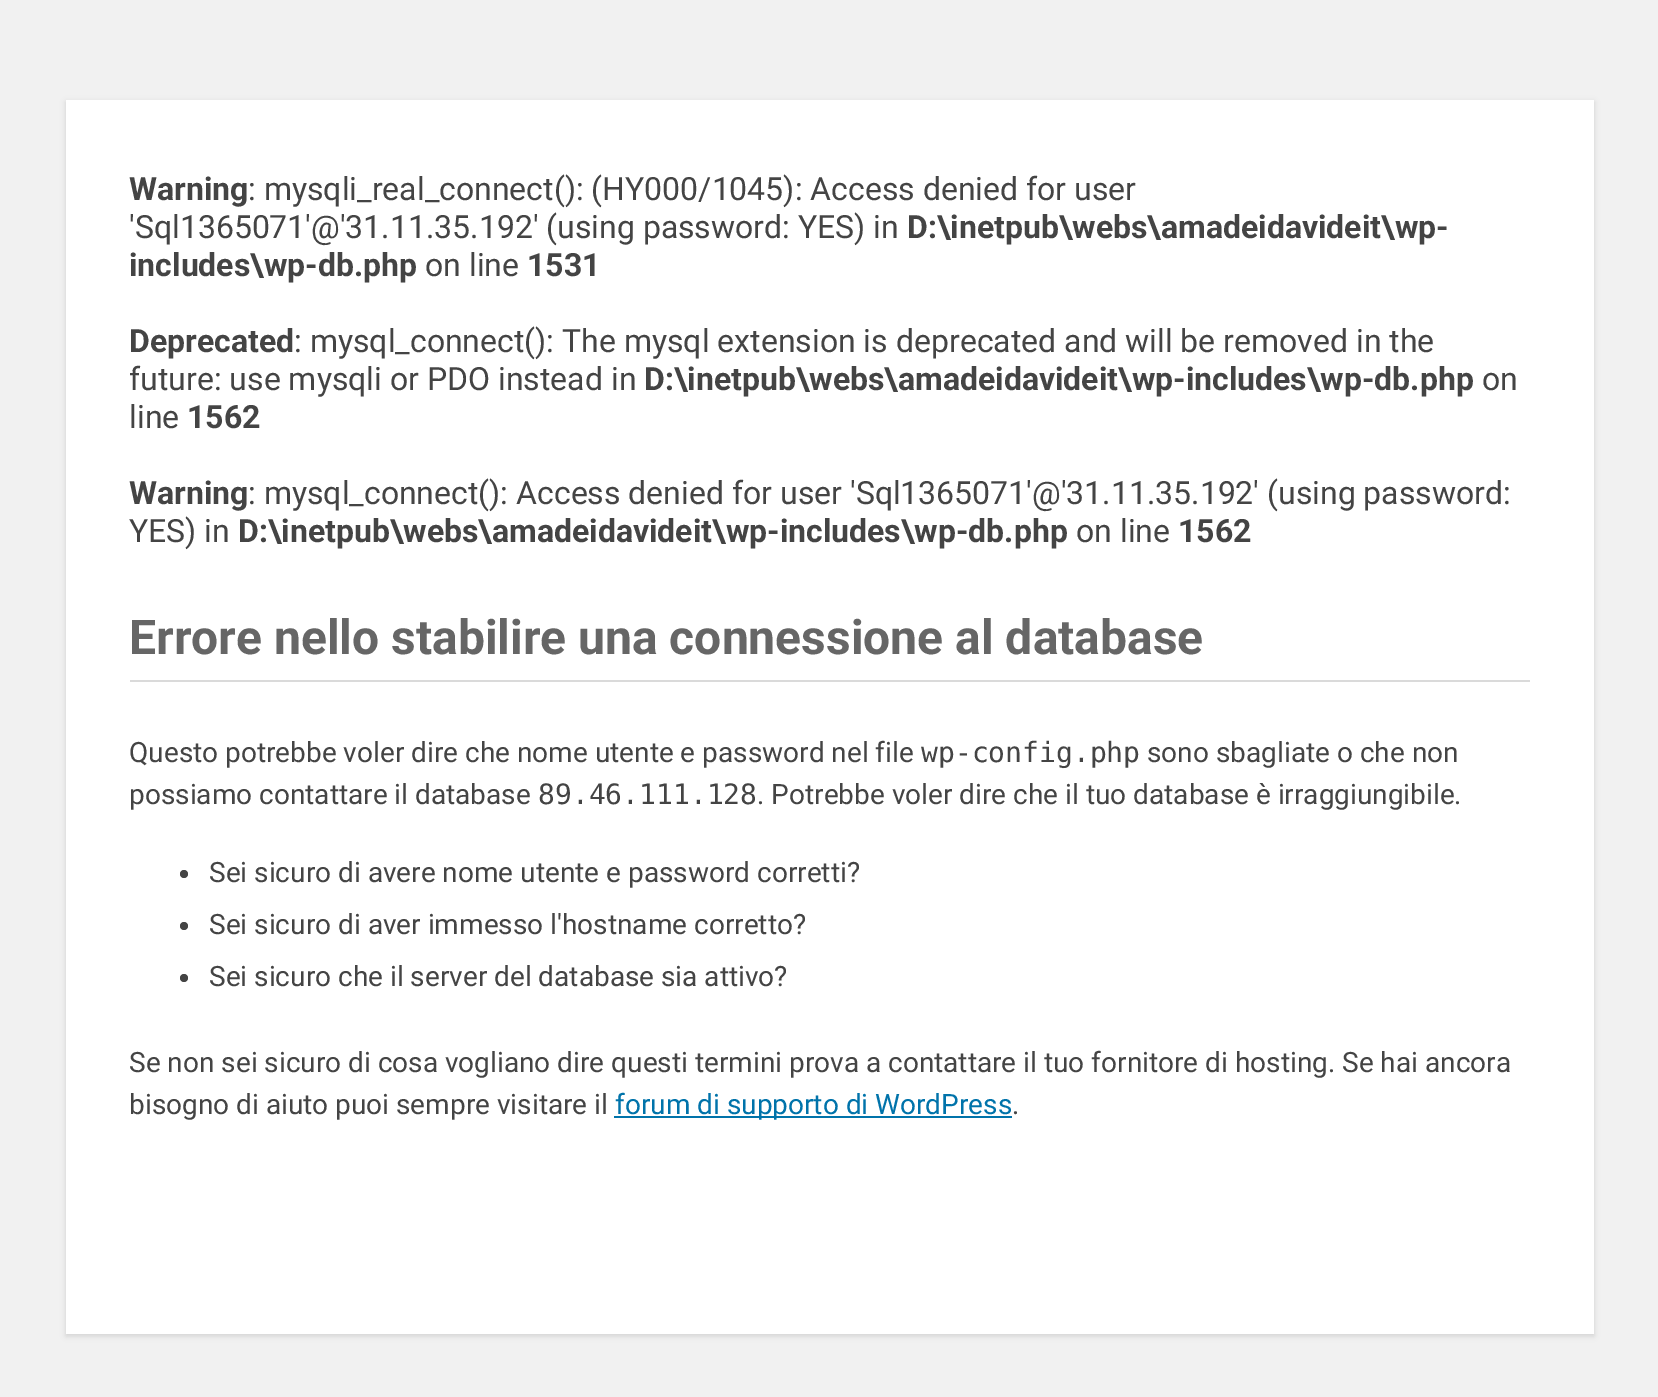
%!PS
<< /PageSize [1658 1397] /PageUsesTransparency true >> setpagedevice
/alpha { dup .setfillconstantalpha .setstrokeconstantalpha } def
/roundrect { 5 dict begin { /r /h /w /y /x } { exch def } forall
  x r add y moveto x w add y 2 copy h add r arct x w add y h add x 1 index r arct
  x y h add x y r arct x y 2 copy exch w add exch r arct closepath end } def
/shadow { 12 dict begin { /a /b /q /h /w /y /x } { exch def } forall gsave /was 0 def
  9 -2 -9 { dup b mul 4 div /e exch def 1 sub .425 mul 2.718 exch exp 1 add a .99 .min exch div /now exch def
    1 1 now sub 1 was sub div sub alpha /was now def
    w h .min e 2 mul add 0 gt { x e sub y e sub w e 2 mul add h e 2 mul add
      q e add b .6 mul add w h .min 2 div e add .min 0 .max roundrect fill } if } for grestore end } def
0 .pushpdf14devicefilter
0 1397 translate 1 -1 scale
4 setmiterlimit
0.945 setgray
0 0 1658 1397 rectfill
0 setgray
66 102 1528 1234 0 3 0.13 shadow
1 setgray
66 100 1528 1234 rectfill
/Roboto-Bold [32 0 0 -32 0 0] selectfont
0.267 setgray
129 200 moveto (Warning) show
/Roboto-Regular [32 0 0 -32 0 0] selectfont
248 200 moveto (: mysqli_real_connect\(\): \(HY000/1045\): Access denied for user) show
129 238 moveto ('Sql1365071'@'31.11.35.192' \(using password: YES\) in) show
/Roboto-Bold [32 0 0 -32 0 0] selectfont
907 238 moveto (D:\\inetpub\\webs\\amadeidavideit\\wp-) show
129 276 moveto (includes\\wp-db.php) show
/Roboto-Regular [32 0 0 -32 0 0] selectfont
425 276 moveto (on line) show
/Roboto-Bold [32 0 0 -32 0 0] selectfont
527 276 moveto (1531) show
129 352 moveto (Deprecated) show
/Roboto-Regular [32 0 0 -32 0 0] selectfont
294 352 moveto (: mysql_connect\(\): The mysql extension is deprecated and will be removed in the) show
129 390 moveto (future: use mysqli or PDO instead in) show
/Roboto-Bold [32 0 0 -32 0 0] selectfont
644 390 moveto (D:\\inetpub\\webs\\amadeidavideit\\wp-includes\\wp-db.php) show
/Roboto-Regular [32 0 0 -32 0 0] selectfont
1482 390 moveto (on) show
129 428 moveto (line) show
/Roboto-Bold [32 0 0 -32 0 0] selectfont
187 428 moveto (1562) show
129 504 moveto (Warning) show
/Roboto-Regular [32 0 0 -32 0 0] selectfont
248 504 moveto (: mysql_connect\(\): Access denied for user 'Sql1365071'@'31.11.35.192' \(using password:) show
129 542 moveto (YES\) in) show
/Roboto-Bold [32 0 0 -32 0 0] selectfont
238 542 moveto (D:\\inetpub\\webs\\amadeidavideit\\wp-includes\\wp-db.php) show
/Roboto-Regular [32 0 0 -32 0 0] selectfont
1076 542 moveto (on line) show
/Roboto-Bold [32 0 0 -32 0 0] selectfont
1178 542 moveto (1562) show
0.855 setgray
130 680 1400 2 rectfill
/Roboto-Bold [48 0 0 -48 0 0] selectfont
0.4 setgray
129 654 moveto (Errore nello stabilire una connessione al database) show
/Roboto-Regular [28 0 0 -28 0 0] selectfont
0.267 setgray
129 762 moveto (Questo potrebbe voler dire che nome utente e password nel file) show
/DejaVuSansMono-Regular [28 0 0 -28 0 0] selectfont
921 762 moveto (wp-config.php) show
/Roboto-Regular [28 0 0 -28 0 0] selectfont
1147 762 moveto (sono sbagliate o che non) show
129 804 moveto (possiamo contattare il database) show
/DejaVuSansMono-Regular [28 0 0 -28 0 0] selectfont
538 804 moveto (89.46.111.128) show
/Roboto-Regular [28 0 0 -28 0 0] selectfont
757 804 moveto (. Potrebbe voler dire che il tuo database è irraggiungibile.) show
newpath 184 874 4 0 360 arc closepath fill
209 882 moveto (Sei sicuro di avere nome utente e password corretti?) show
newpath 184 926 4 0 360 arc closepath fill
209 934 moveto (Sei sicuro di aver immesso l'hostname corretto?) show
newpath 184 978 4 0 360 arc closepath fill
209 986 moveto (Sei sicuro che il server del database sia attivo?) show
129 1072 moveto (Se non sei sicuro di cosa vogliano dire questi termini prova a contattare il tuo fornitore di hosting. Se hai ancora) show
129 1114 moveto (bisogno di aiuto puoi sempre visitare il) show
0 0.451 0.667 setrgbcolor
614 1116 398 2 rectfill
615 1114 moveto (forum di supporto di WordPress) show
0.267 setgray
1012 1114 moveto (.) show
.poppdf14devicefilter showpage
